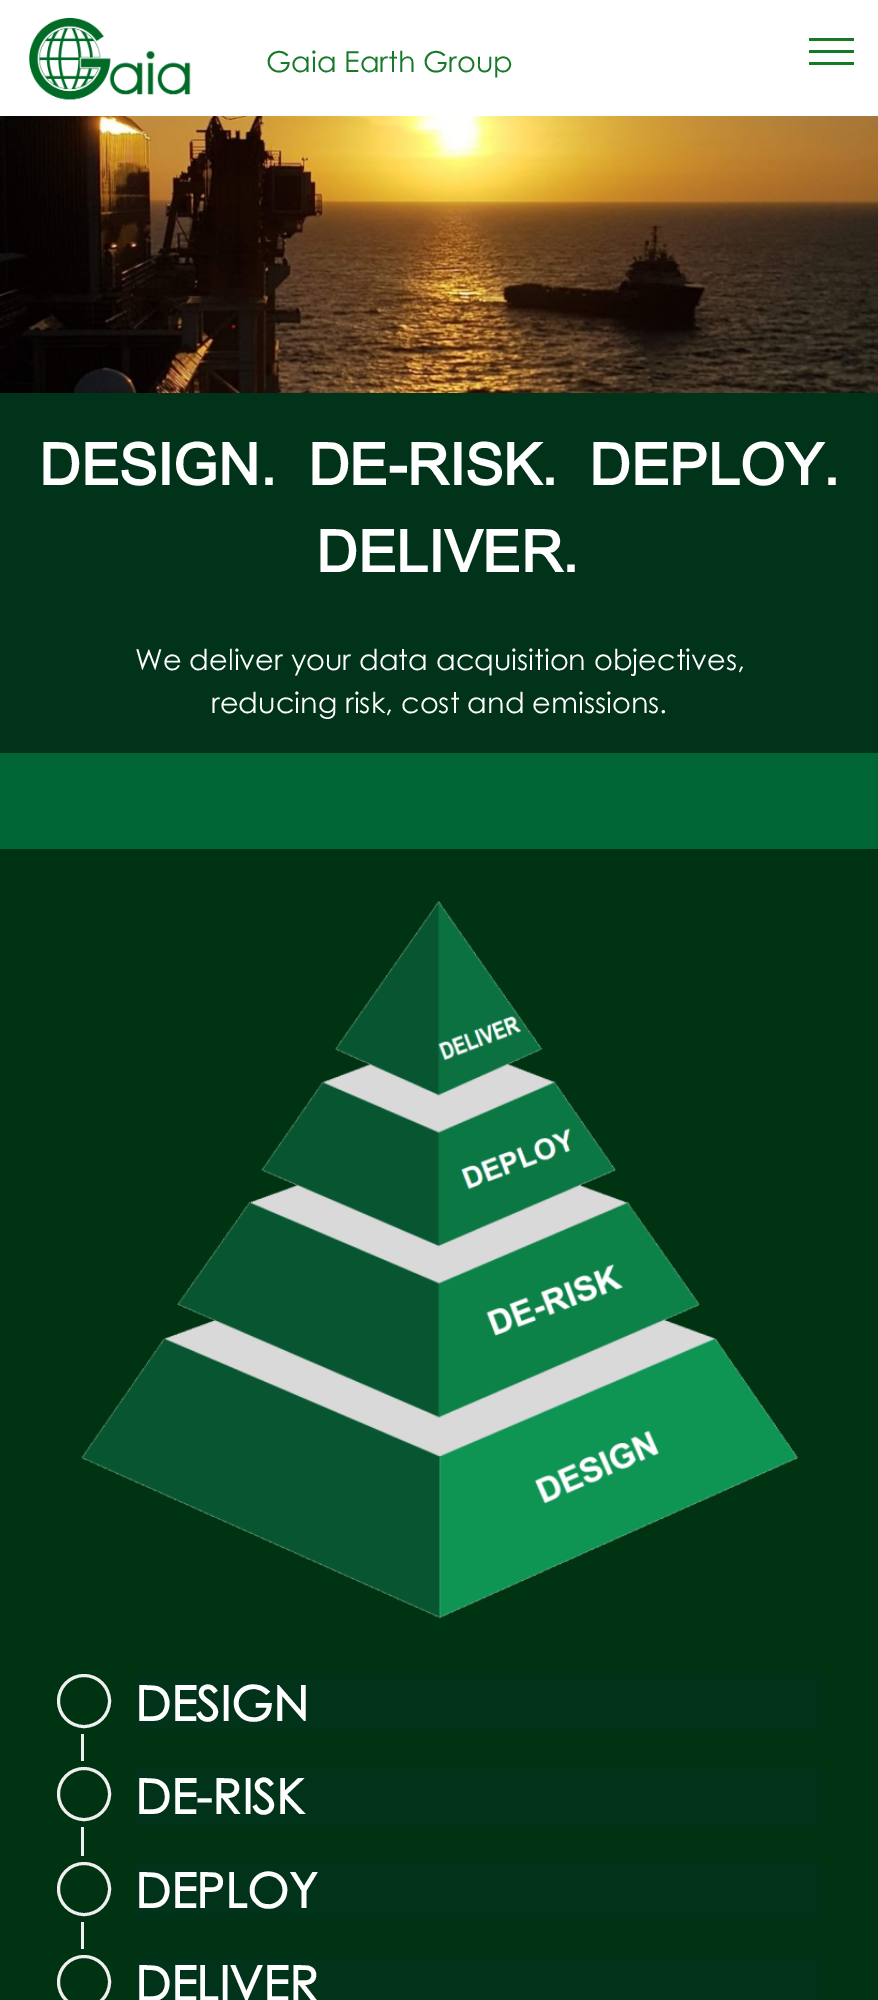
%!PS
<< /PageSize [878 2000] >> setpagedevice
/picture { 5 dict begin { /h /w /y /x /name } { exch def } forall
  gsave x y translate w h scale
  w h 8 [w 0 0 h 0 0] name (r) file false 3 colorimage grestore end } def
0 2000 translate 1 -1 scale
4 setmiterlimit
0 0.2 0.098 setrgbcolor
0 0 878 2000 rectfill
1 setgray
0 0 878 116 rectfill
(img1.rgb) 29 17 162 83 picture
/CenturyGothic-Regular [28.8 0 0 -28.8 0 0] selectfont
0.086 0.475 0.157 setrgbcolor
266 72 moveto (Gaia Earth Group) show
809 38 45 3 rectfill
809 50 45 3 rectfill
809 62 45 3 rectfill
(img2.rgb) 0 116 878 277 picture
/Arial-Bold [57.6 0 0 -57.6 0 0] selectfont
1 setgray
39 485 moveto (DESIGN.  DE-RISK.  DEPLOY.) show
316 572 moveto (DELIVER.) show
/CenturyGothic-Regular [28.8 0 0 -28.8 0 0] selectfont
135 670 moveto (We deliver your data acquisition objectives,) show
211 713 moveto (reducing risk, cost and emissions.) show
0 0.4 0.2 setrgbcolor
0 753 878 96 rectfill
0 0.2 0.067 setrgbcolor
0 849 878 1151 rectfill
(img3.rgb) 81 901 718 718 picture
0.937 setgray
3 setlinewidth
newpath 84 1701 25.5 0 360 arc closepath stroke
0 0.2 0.098 setrgbcolor
135 1674 687 57 rectfill
/CenturyGothic-Bold [48 0 0 -48 0 0] selectfont
1 setgray
135 1721 moveto (DESIGN) show
0.937 setgray
81 1734 3 27 rectfill
newpath 84 1794 25.5 0 360 arc closepath stroke
0 0.2 0.098 setrgbcolor
135 1767 687 59 rectfill
1 setgray
135 1814 moveto (DE-RISK) show
0.937 setgray
81 1827 3 29 rectfill
newpath 84 1889 25.5 0 360 arc closepath stroke
0 0.2 0.098 setrgbcolor
135 1862 687 57 rectfill
1 setgray
135 1908 moveto (DEPLOY) show
0.937 setgray
81 1922 3 27 rectfill
newpath 84 1982 25.5 0 360 arc closepath stroke
0 0.2 0.098 setrgbcolor
135 1955 687 45 rectfill
1 setgray
135 2001 moveto (DELIVER) show
showpage
